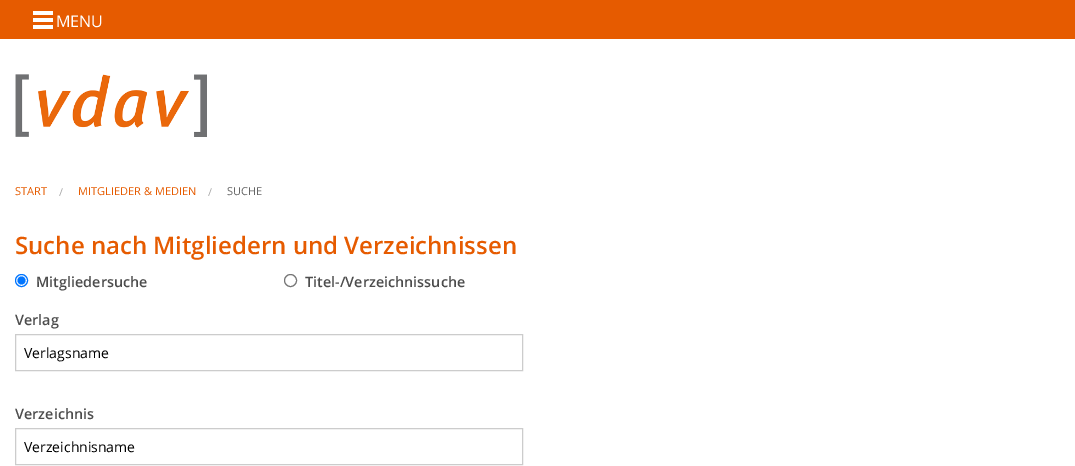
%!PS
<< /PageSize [1075 466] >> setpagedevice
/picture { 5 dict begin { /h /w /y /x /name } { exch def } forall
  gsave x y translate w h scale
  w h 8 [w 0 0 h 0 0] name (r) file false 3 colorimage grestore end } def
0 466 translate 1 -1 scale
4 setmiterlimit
1 setgray
0 0 1075 466 rectfill
0.902 0.357 0 setrgbcolor
0 0 1075 39 rectfill
(img1.rgb) 15 74 192 63 picture
1 setgray
33 25 20 4 rectfill
33 18 20 4 rectfill
33 11 20 4 rectfill
/OpenSans-Regular [16 0 0 -16 0 0] selectfont
56 27 moveto (MENU) show
/OpenSans-Regular [11 0 0 -11 0 0] selectfont
0.902 0.357 0 setrgbcolor
15 195 moveto (START) show
0.667 setgray
59 196 moveto (/) show
0.902 0.357 0 setrgbcolor
78 195 moveto (MITGLIEDER & MEDIEN) show
0.667 setgray
208 196 moveto (/) show
0.4 setgray
227 195 moveto (SUCHE) show
/OpenSans-SemiBold [24 0 0 -24 0 0] selectfont
0.902 0.357 0 setrgbcolor
15 254 moveto (Suche nach Mitgliedern und Verzeichnissen) show
0 0.459 1 setrgbcolor
newpath 21.5 280.5 6 0 360 arc closepath stroke
newpath 21.5 280.5 4 0 360 arc closepath fill
/OpenSans-SemiBold [14.4 0 0 -14.4 0 0] selectfont
0.302 setgray
36 287 moveto (Mitgliedersuche) show
0.463 setgray
newpath 290.5 280.5 6 0 360 arc closepath stroke
0.302 setgray
305 287 moveto (Titel-/Verzeichnissuche) show
15 325 moveto (Verlag) show
0.8 setgray
15.5 334.5 507 36 rectstroke
/OpenSans-Regular [14 0 0 -14 0 0] selectfont
0 setgray
24 358 moveto (Verlagsname) show
/OpenSans-SemiBold [14.4 0 0 -14.4 0 0] selectfont
0.302 setgray
15 419 moveto (Verzeichnis) show
0.8 setgray
15.5 428.5 507 36 rectstroke
/OpenSans-Regular [14 0 0 -14 0 0] selectfont
0 setgray
24 452 moveto (Verzeichnisname) show
showpage
